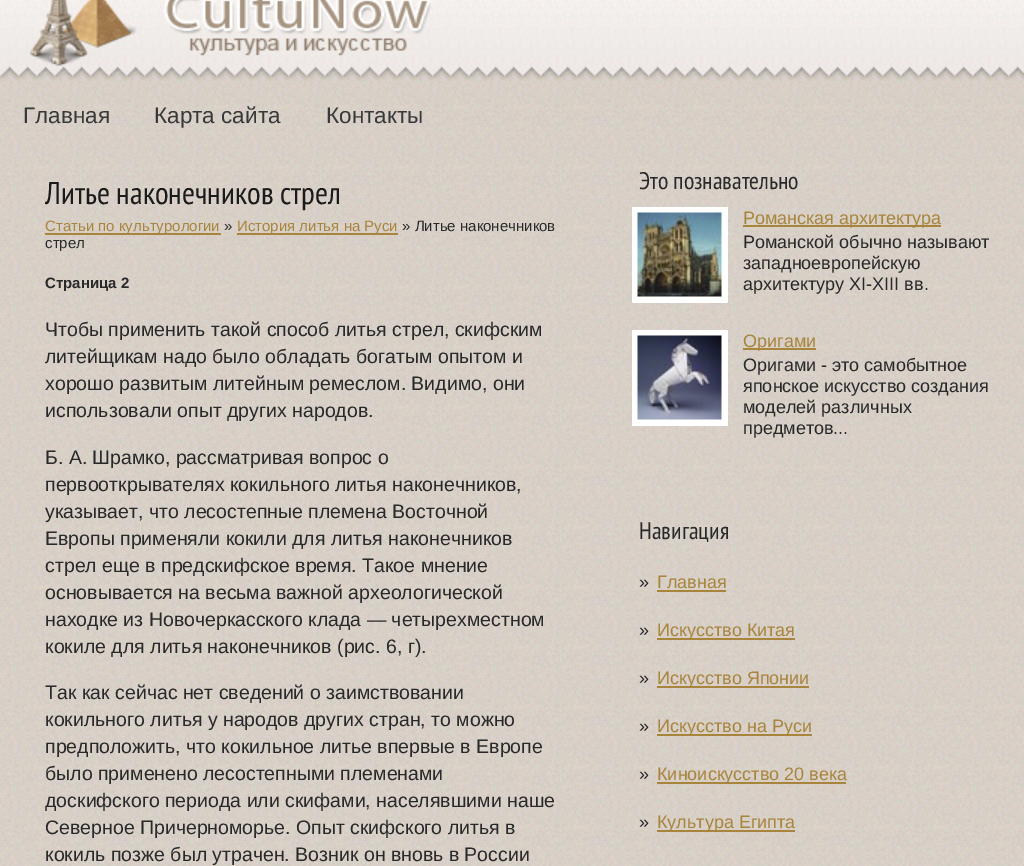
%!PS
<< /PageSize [1024 866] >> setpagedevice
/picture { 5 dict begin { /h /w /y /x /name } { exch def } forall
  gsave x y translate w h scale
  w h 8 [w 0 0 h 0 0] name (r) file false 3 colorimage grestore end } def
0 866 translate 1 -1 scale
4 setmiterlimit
1 setgray
0 0 1024 866 rectfill
(img1.rgb) 0 80 1024 786 picture
(img2.rgb) 0 0 1024 81 picture
(img3.rgb) 30 0 401 66 picture
/LiberationSans-Regular [22.5 0 0 -22.5 0 0] selectfont
0.224 setgray
23 123 moveto (Главная) show
154 123 moveto (Карта сайта) show
326 123 moveto (Контакты) show
/PTSansNarrow-Regular [31.5 0 0 -31.5 0 0] selectfont
0.106 setgray
45 204 moveto (Литье наконечников стрел) show
0.659 0.518 0.239 setrgbcolor
45 233 176 2 rectfill
/LiberationSans-Regular [15 0 0 -15 0 0] selectfont
45 231 moveto (Статьи по культурологии) show
0.161 setgray
224 231 moveto (») show
0.659 0.518 0.239 setrgbcolor
237 233 161 2 rectfill
237 231 moveto (История литья на Руси) show
0.161 setgray
402 231 moveto (» Литье наконечников) show
45 248 moveto (стрел) show
/LiberationSans-Bold [15 0 0 -15 0 0] selectfont
45 288 moveto (Страница 2) show
/LiberationSans-Regular [19.5 0 0 -19.5 0 0] selectfont
45 336 moveto (Чтобы применить такой способ литья стрел, скифским) show
45 363 moveto (литейщикам надо было обладать богатым опытом и) show
45 390 moveto (хорошо развитым литейным ремеслом. Видимо, они) show
45 417 moveto (использовали опыт других народов.) show
45 464 moveto (Б. А. Шрамко, рассматривая вопрос о) show
45 491 moveto (первооткрывателях кокильного литья наконечников,) show
45 518 moveto (указывает, что лесостепные племена Восточной) show
45 545 moveto (Европы применяли кокили для литья наконечников) show
45 572 moveto (стрел еще в предскифское время. Такое мнение) show
45 599 moveto (основывается на весьма важной археологической) show
45 626 moveto (находке из Новочеркасского клада — четырехместном) show
45 653 moveto (кокиле для литья наконечников \(рис. 6, г\).) show
45 699 moveto (Так как сейчас нет сведений о заимствовании) show
45 726 moveto (кокильного литья у народов других стран, то можно) show
45 753 moveto (предположить, что кокильное литье впервые в Европе) show
45 780 moveto (было применено лесостепными племенами) show
45 807 moveto (доскифского периода или скифами, населявшими наше) show
45 834 moveto (Северное Причерноморье. Опыт скифского литья в) show
45 861 moveto (кокиль позже был утрачен. Возник он вновь в России) show
/PTSansNarrow-Regular [24 0 0 -24 0 0] selectfont
639 189 moveto (Это познавательно) show
1 setgray
632 207 96 96 rectfill
(img4.rgb) 637 212 85 85 picture
0.659 0.518 0.239 setrgbcolor
743 225 198 2 rectfill
/LiberationSans-Regular [18 0 0 -18 0 0] selectfont
743 224 moveto (Романская архитектура) show
0.161 setgray
743 248 moveto (Романской обычно называют) show
743 269 moveto (западноевропейскую) show
743 290 moveto (архитектуру XI-XIII вв.) show
1 setgray
632 330 96 96 rectfill
(img5.rgb) 637 335 85 85 picture
0.659 0.518 0.239 setrgbcolor
743 348 73 2 rectfill
743 347 moveto (Оригами) show
0.161 setgray
743 371 moveto (Оригами - это самобытное) show
743 392 moveto (японское искусство создания) show
743 413 moveto (моделей различных) show
743 434 moveto (предметов...) show
/PTSansNarrow-Regular [24 0 0 -24 0 0] selectfont
639 539 moveto (Навигация) show
/LiberationSans-Regular [18 0 0 -18 0 0] selectfont
639 588 moveto (») show
0.659 0.518 0.239 setrgbcolor
657 588 moveto (Главная) show
657 590 69 2 rectfill
0.161 setgray
639 636 moveto (») show
0.659 0.518 0.239 setrgbcolor
657 638 138 2 rectfill
657 636 moveto (Искусство Китая) show
0.161 setgray
639 684 moveto (») show
0.659 0.518 0.239 setrgbcolor
657 686 152 2 rectfill
657 684 moveto (Искусство Японии) show
0.161 setgray
639 732 moveto (») show
0.659 0.518 0.239 setrgbcolor
657 734 155 2 rectfill
657 732 moveto (Искусство на Руси) show
0.161 setgray
639 780 moveto (») show
0.659 0.518 0.239 setrgbcolor
657 782 189 2 rectfill
657 780 moveto (Киноискусство 20 века) show
0.161 setgray
639 828 moveto (») show
0.659 0.518 0.239 setrgbcolor
657 830 138 2 rectfill
657 828 moveto (Культура Египта) show
showpage
